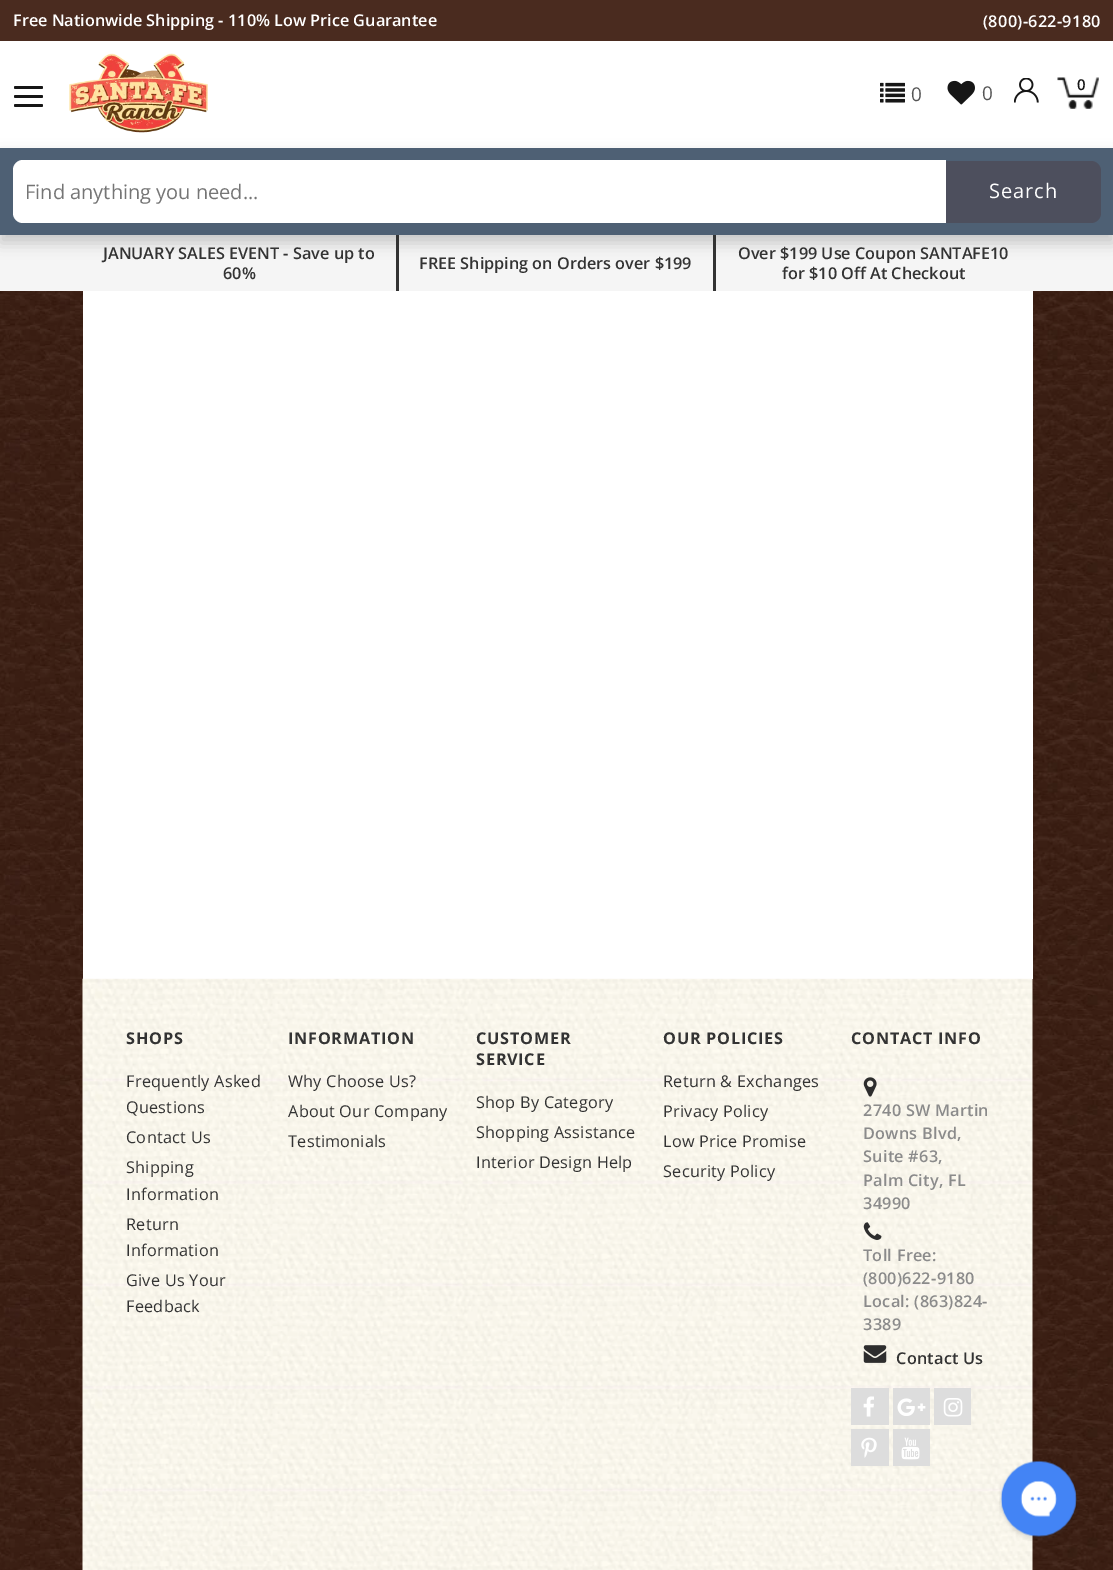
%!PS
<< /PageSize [1113 1570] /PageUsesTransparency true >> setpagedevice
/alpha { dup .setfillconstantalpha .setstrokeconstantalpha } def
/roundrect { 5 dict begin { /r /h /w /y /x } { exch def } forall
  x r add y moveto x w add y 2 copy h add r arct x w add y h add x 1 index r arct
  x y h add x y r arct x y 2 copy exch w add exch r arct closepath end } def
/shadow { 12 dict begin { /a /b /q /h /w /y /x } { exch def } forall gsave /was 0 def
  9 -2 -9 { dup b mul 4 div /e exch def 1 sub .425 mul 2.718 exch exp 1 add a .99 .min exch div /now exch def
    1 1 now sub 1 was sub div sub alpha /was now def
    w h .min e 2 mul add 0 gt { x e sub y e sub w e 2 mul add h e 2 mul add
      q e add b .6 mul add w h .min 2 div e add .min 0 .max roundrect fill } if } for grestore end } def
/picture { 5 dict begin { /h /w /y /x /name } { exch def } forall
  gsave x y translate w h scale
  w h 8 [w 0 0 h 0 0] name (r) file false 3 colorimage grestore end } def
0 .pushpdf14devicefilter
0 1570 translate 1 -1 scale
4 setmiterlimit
1 setgray
0 0 1113 1570 rectfill
(img1.rgb) 0 291 1113 1279 picture
0.29 0.169 0.122 setrgbcolor
0 0 1113 41 rectfill
/OpenSans-SemiBold [16.25 0 0 -16.25 0 0] selectfont
1 setgray
13 26 moveto (Free Nationwide Shipping - 110% Low Price Guarantee) show
983 27 moveto 0.3 0 (\(800\)-622-9180) ashow
0.086 setgray
14 95 29 3 1.5 roundrect fill
14 86 29 3 1.5 roundrect fill
14 104 29 3 1.5 roundrect fill
(img2.rgb) 69 53 139 80 picture
(img3.rgb) 880 82 25 21 picture
/OpenSans-Regular [19 0 0 -19 0 0] selectfont
0.333 setgray
911 101 moveto (0) show
(img4.rgb) 947 80 28 25 picture
982 100 moveto (0) show
(img5.rgb) 1014 78 25 25 picture
(img6.rgb) 1057 77 42 32 picture
/OpenSans-SemiBold [15 0 0 -15 0 0] selectfont
0.086 setgray
1077 90 moveto 0.25 0 (0) ashow
0.961 setgray
0 235 1113 56 rectfill
0 setgray
0 155 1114 88 0 7.5 0.18 shadow
0.306 0.376 0.455 setrgbcolor
0 148 1113 87 rectfill
1 setgray
newpath 23 160 moveto 946 160 lineto 946 223 lineto 23 223 lineto 17.5 223 13 218.5 13 213 curveto 13 170 lineto 13 164.5 17.5 160 23 160 curveto closepath fill
/OpenSans-Regular [20 0 0 -20 0 0] selectfont
0.459 setgray
25 199 moveto (Find anything you need...) show
0.302 0.31 0.365 setrgbcolor
newpath 946 161 moveto 1091 161 lineto 1096.5 161 1101 165.5 1101 171 curveto 1101 213 lineto 1101 218.5 1096.5 223 1091 223 curveto 946 223 lineto closepath fill
1 setgray
989 198 moveto 1 0 (Search) ashow
0.2 setgray
396 235 3 56 rectfill
/OpenSans-SemiBold [16.25 0 0 -16.25 0 0] selectfont
103 259 moveto (JANUARY SALES EVENT - Save up to) show
223 279 moveto (60%) show
713 235 3 56 rectfill
419 269 moveto (FREE Shipping on Orders over $199) show
738 259 moveto (Over $199 Use Coupon SANTAFE10) show
782 279 moveto (for $10 Off At Checkout) show
1 setgray
83 291 950 688 rectfill
(img7.rgb) 82 978 951 592 picture
/OpenSans-Bold [16.25 0 0 -16.25 0 0] selectfont
0.2 setgray
126 1044 moveto 0.75 0 (SHOPS) ashow
/OpenSans-Regular [16.25 0 0 -16.25 0 0] selectfont
126 1087 moveto 0.25 0 (Frequently Asked) ashow
126 1113 moveto 0.25 0 (Questions) ashow
126 1143 moveto 0.25 0 (Contact Us) ashow
126 1173 moveto 0.25 0 (Shipping) ashow
126 1200 moveto 0.25 0 (Information) ashow
126 1230 moveto 0.25 0 (Return) ashow
126 1256 moveto 0.25 0 (Information) ashow
126 1286 moveto 0.25 0 (Give Us Your) ashow
126 1312 moveto 0.25 0 (Feedback) ashow
/OpenSans-Bold [16.25 0 0 -16.25 0 0] selectfont
288 1044 moveto 0.75 0 (INFORMATION) ashow
/OpenSans-Regular [16.25 0 0 -16.25 0 0] selectfont
288 1087 moveto 0.25 0 (Why Choose Us?) ashow
288 1117 moveto 0.25 0 (About Our Company) ashow
288 1147 moveto 0.25 0 (Testimonials) ashow
/OpenSans-Bold [16.25 0 0 -16.25 0 0] selectfont
476 1044 moveto 0.75 0 (CUSTOMER) ashow
476 1065 moveto 0.75 0 (SERVICE) ashow
/OpenSans-Regular [16.25 0 0 -16.25 0 0] selectfont
476 1108 moveto 0.25 0 (Shop By Category) ashow
476 1138 moveto 0.25 0 (Shopping Assistance) ashow
476 1168 moveto 0.25 0 (Interior Design Help) ashow
/OpenSans-Bold [16.25 0 0 -16.25 0 0] selectfont
663 1044 moveto 0.75 0 (OUR POLICIES) ashow
/OpenSans-Regular [16.25 0 0 -16.25 0 0] selectfont
663 1087 moveto 0.25 0 (Return & Exchanges) ashow
663 1117 moveto 0.25 0 (Privacy Policy) ashow
663 1147 moveto 0.25 0 (Low Price Promise) ashow
663 1177 moveto 0.25 0 (Security Policy) ashow
/OpenSans-Bold [16.25 0 0 -16.25 0 0] selectfont
851 1044 moveto 0.75 0 (CONTACT INFO) ashow
(img8.rgb) 863 1077 14 20 picture
/OpenSans-SemiBold [16.25 0 0 -16.25 0 0] selectfont
0.545 setgray
863 1116 moveto 0.25 0 (2740 SW Martin) ashow
863 1139 moveto 0.25 0 (Downs Blvd,) ashow
863 1162 moveto 0.25 0 (Suite #63,) ashow
863 1186 moveto 0.25 0 (Palm City, FL) ashow
863 1209 moveto 0.25 0 (34990) ashow
(img9.rgb) 863 1222 19 18 picture
863 1261 moveto 0.25 0 (Toll Free:) ashow
863 1284 moveto 0.25 0 (\(800\)622-9180) ashow
863 1307 moveto 0.25 0 (Local: \(863\)824-) ashow
863 1330 moveto 0.25 0 (3389) ashow
(img10.rgb) 863 1345 24 18 picture
0.2 setgray
896 1364 moveto 0.25 0 (Contact Us) ashow
0.867 setgray
851 1388 38 37 rectfill
(img11.rgb) 863 1396 11 21 picture
893 1388 37 37 rectfill
(img12.rgb) 897 1398 29 18 picture
934 1388 37 37 rectfill
(img13.rgb) 943 1398 20 19 picture
851 1429 38 37 rectfill
(img14.rgb) 861 1437 16 21 picture
893 1429 37 37 rectfill
(img15.rgb) 901 1437 19 23 picture
(img16.rgb) 999 1460 78 81 picture
.poppdf14devicefilter showpage
